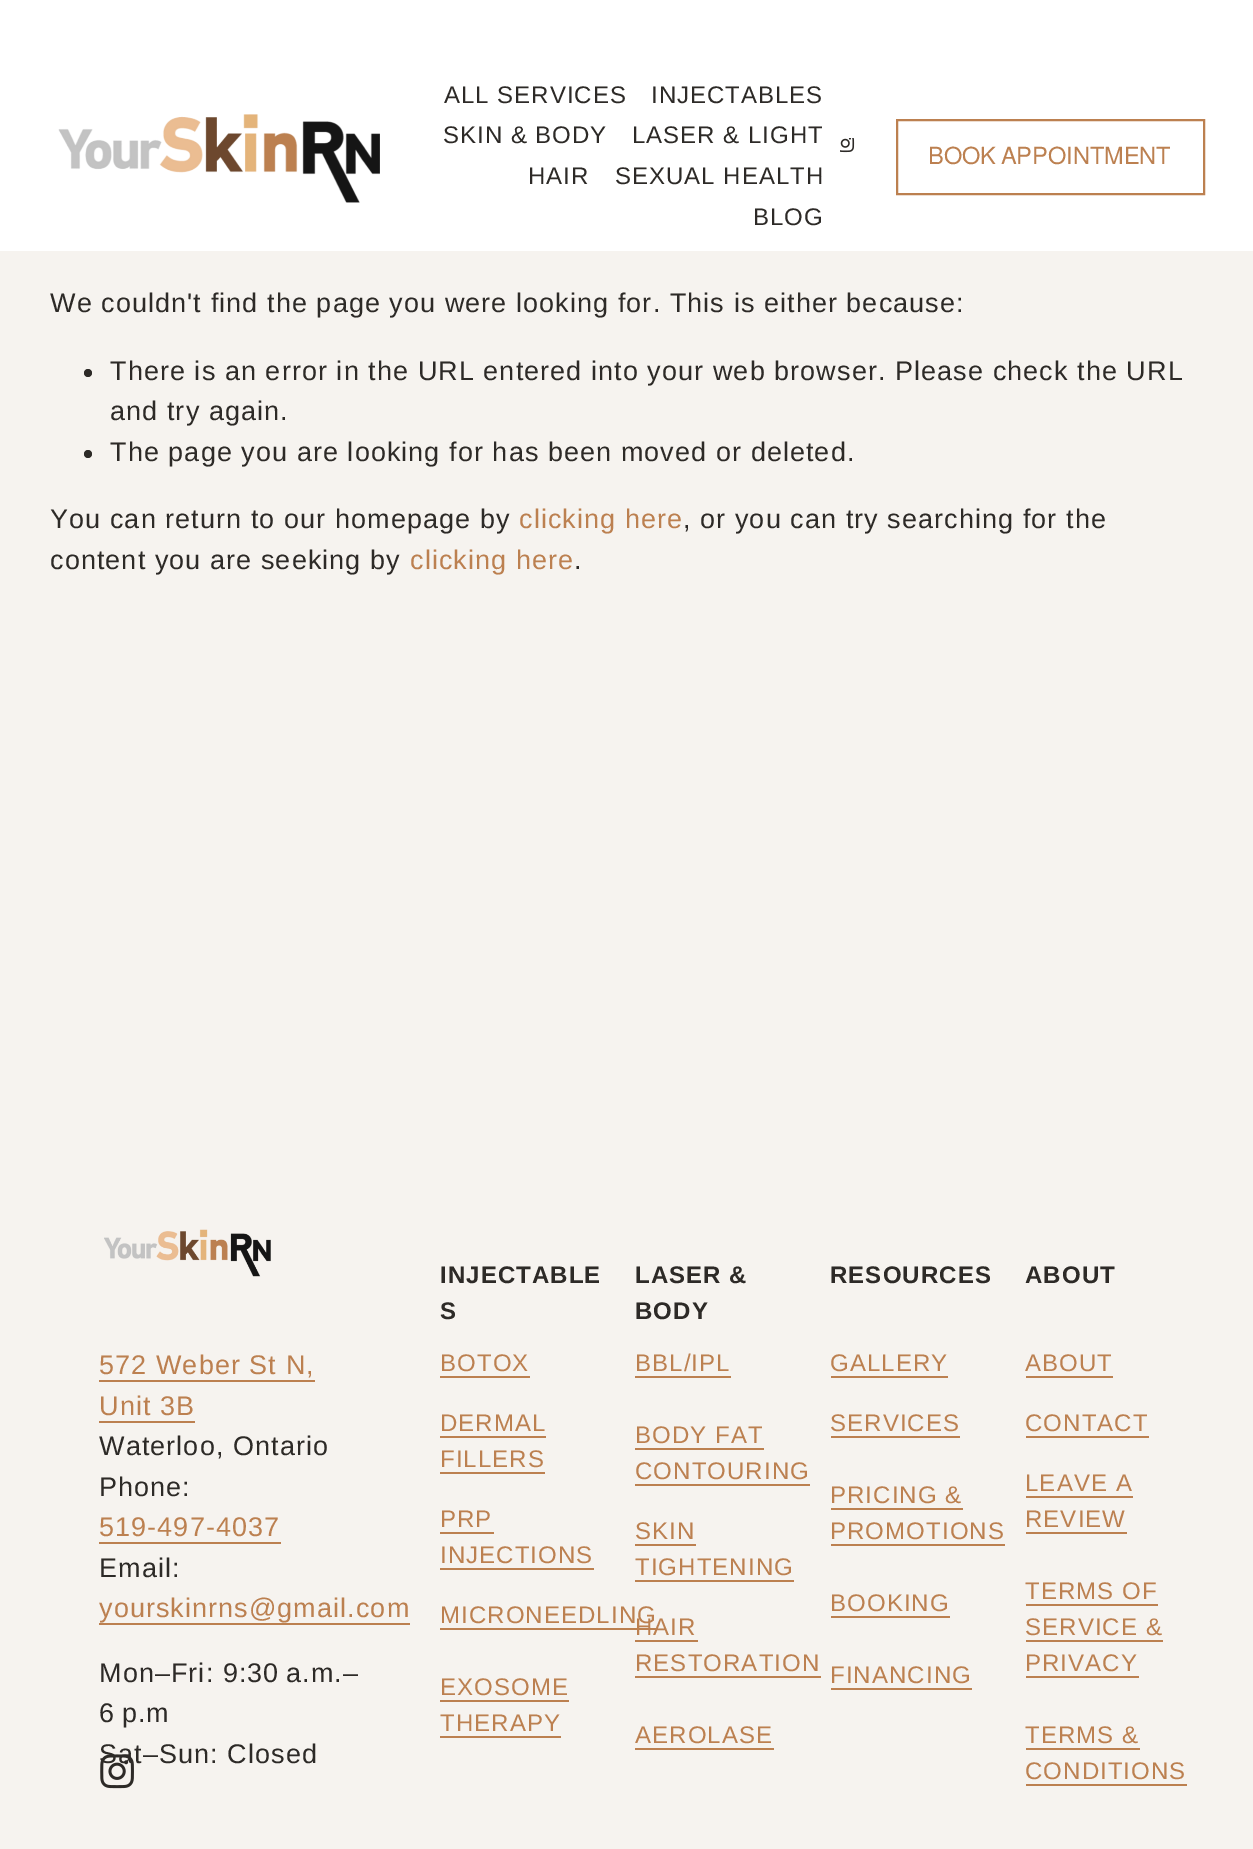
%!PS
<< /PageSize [1253 1849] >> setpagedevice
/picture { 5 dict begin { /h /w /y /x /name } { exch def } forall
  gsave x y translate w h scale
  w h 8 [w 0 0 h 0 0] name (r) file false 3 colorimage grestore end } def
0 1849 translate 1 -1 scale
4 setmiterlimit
0.965 0.953 0.937 setrgbcolor
0 0 1253 1849 rectfill
1 setgray
0 0 1253 251 rectfill
(img1.rgb) 58 114 322 89 picture
/LiberationSans-Regular [24 0 0 -24 0 0] selectfont
0.176 0.165 0.153 setrgbcolor
444 103 moveto 1 0 (ALL SERVICES) ashow
651 103 moveto 1 0 (INJECTABLES) ashow
443 143 moveto 1 0 (SKIN & BODY) ashow
632 143 moveto 1 0 (LASER & LIGHT) ashow
528 184 moveto 1 0 (HAIR) ashow
615 184 moveto 1 0 (SEXUAL HEALTH) ashow
753 225 moveto 1 0 (BLOG) ashow
(img2.rgb) 840 138 15 15 picture
0.737 0.502 0.314 setrgbcolor
2 setlinewidth
897 120 307 74 rectstroke
/Almarai-Regular [24 0 0 -24 0 0] selectfont
928 164 moveto (BOOK APPOINTMENT) show
/LiberationSans-Regular [27 0 0 -27 0 0] selectfont
0.176 0.165 0.153 setrgbcolor
50 312 moveto 1.08 0 (We couldn't find the page you were looking for. This is either because:) ashow
newpath 88 373 4 0 360 arc closepath fill
110 380 moveto 1.08 0 (There is an error in the URL entered into your web browser. Please check the URL) ashow
110 420 moveto 1.08 0 (and try again.) ashow
newpath 88 454 4 0 360 arc closepath fill
110 461 moveto 1.08 0 (The page you are looking for has been moved or deleted.) ashow
50 528 moveto 1.08 0 (You can return to our homepage by) ashow
0.737 0.502 0.314 setrgbcolor
519 528 moveto 1.08 0 (clicking here) ashow
0.176 0.165 0.153 setrgbcolor
683 528 moveto 1.08 0 (, or you can try searching for the) ashow
50 569 moveto 1.08 0 (content you are seeking by) ashow
0.737 0.502 0.314 setrgbcolor
410 569 moveto 1.08 0 (clicking here) ashow
0.176 0.165 0.153 setrgbcolor
574 569 moveto 1.08 0 (.) ashow
(img3.rgb) 104 1229 167 48 picture
/LiberationSans-Bold [24 0 0 -24 0 0] selectfont
440 1283 moveto 1.08 0 (INJECTABLE) ashow
440 1319 moveto 1.08 0 (S) ashow
635 1283 moveto 1.08 0 (LASER &) ashow
635 1319 moveto 1.08 0 (BODY) ashow
830 1283 moveto 1.08 0 (RESOURCES) ashow
1025 1283 moveto 1.08 0 (ABOUT) ashow
/LiberationSans-Regular [27 0 0 -27 0 0] selectfont
0.737 0.502 0.314 setrgbcolor
99 1374 moveto 1.08 0 (572 Weber St N,) ashow
99 1380 216 2 rectfill
99 1415 moveto 1.08 0 (Unit 3B) ashow
99 1421 96 2 rectfill
0.176 0.165 0.153 setrgbcolor
99 1455 moveto 1.08 0 (Waterloo, Ontario) ashow
99 1496 moveto 1.08 0 (Phone:) ashow
0.737 0.502 0.314 setrgbcolor
99 1536 moveto 1.08 0 (519-497-4037) ashow
99 1542 182 2 rectfill
0.176 0.165 0.153 setrgbcolor
99 1577 moveto 1.08 0 (Email:) ashow
0.737 0.502 0.314 setrgbcolor
99 1617 moveto 1.08 0 (yourskinrns@gmail.com) ashow
99 1623 311 2 rectfill
0.176 0.165 0.153 setrgbcolor
99 1682 moveto 1.08 0 (Mon–Fri: 9:30 a.m.–) ashow
99 1722 moveto 1.08 0 (6 p.m) ashow
99 1763 moveto 1.08 0 (Sat–Sun: Closed) ashow
/LiberationSans-Regular [24 0 0 -24 0 0] selectfont
0.737 0.502 0.314 setrgbcolor
440 1371 moveto 1.08 0 (BOTOX) ashow
440 1376 90 2 rectfill
440 1431 moveto 1.08 0 (DERMAL) ashow
440 1436 106 2 rectfill
440 1467 moveto 1.08 0 (FILLERS) ashow
440 1472 105 2 rectfill
440 1527 moveto 1.08 0 (PRP) ashow
440 1532 54 2 rectfill
440 1563 moveto 1.08 0 (INJECTIONS) ashow
440 1568 154 2 rectfill
440 1623 moveto 1.08 0 (MICRONEEDLING) ashow
440 1628 217 2 rectfill
440 1695 moveto 1.08 0 (EXOSOME) ashow
440 1700 129 2 rectfill
440 1731 moveto 1.08 0 (THERAPY) ashow
440 1736 121 2 rectfill
635 1371 moveto 1.08 0 (BBL/IPL) ashow
635 1376 96 2 rectfill
635 1443 moveto 1.08 0 (BODY FAT) ashow
635 1448 129 2 rectfill
635 1479 moveto 1.08 0 (CONTOURING) ashow
635 1484 175 2 rectfill
635 1539 moveto 1.08 0 (SKIN) ashow
635 1544 61 2 rectfill
635 1575 moveto 1.08 0 (TIGHTENING) ashow
635 1580 159 2 rectfill
635 1635 moveto 1.08 0 (HAIR) ashow
635 1640 63 2 rectfill
635 1671 moveto 1.08 0 (RESTORATION) ashow
635 1676 186 2 rectfill
635 1743 moveto 1.08 0 (AEROLASE) ashow
635 1748 139 2 rectfill
830 1371 moveto 1.08 0 (GALLERY) ashow
831 1376 117 2 rectfill
830 1431 moveto 1.08 0 (SERVICES) ashow
831 1436 129 2 rectfill
830 1503 moveto 1.08 0 (PRICING &) ashow
831 1508 132 2 rectfill
830 1539 moveto 1.08 0 (PROMOTIONS) ashow
831 1544 174 2 rectfill
830 1611 moveto 1.08 0 (BOOKING) ashow
831 1616 119 2 rectfill
830 1683 moveto 1.08 0 (FINANCING) ashow
831 1688 141 2 rectfill
1025 1371 moveto 1.08 0 (ABOUT) ashow
1026 1376 87 2 rectfill
1025 1431 moveto 1.08 0 (CONTACT) ashow
1026 1436 123 2 rectfill
1025 1491 moveto 1.08 0 (LEAVE A) ashow
1026 1496 107 2 rectfill
1025 1527 moveto 1.08 0 (REVIEW) ashow
1026 1532 101 2 rectfill
1025 1599 moveto 1.08 0 (TERMS OF) ashow
1026 1604 132 2 rectfill
1025 1635 moveto 1.08 0 (SERVICE &) ashow
1026 1640 137 2 rectfill
1025 1671 moveto 1.08 0 (PRIVACY) ashow
1026 1676 113 2 rectfill
1025 1743 moveto 1.08 0 (TERMS &) ashow
1026 1748 114 2 rectfill
1025 1779 moveto 1.08 0 (CONDITIONS) ashow
1026 1784 161 2 rectfill
(img4.rgb) 100 1754 34 35 picture
showpage
